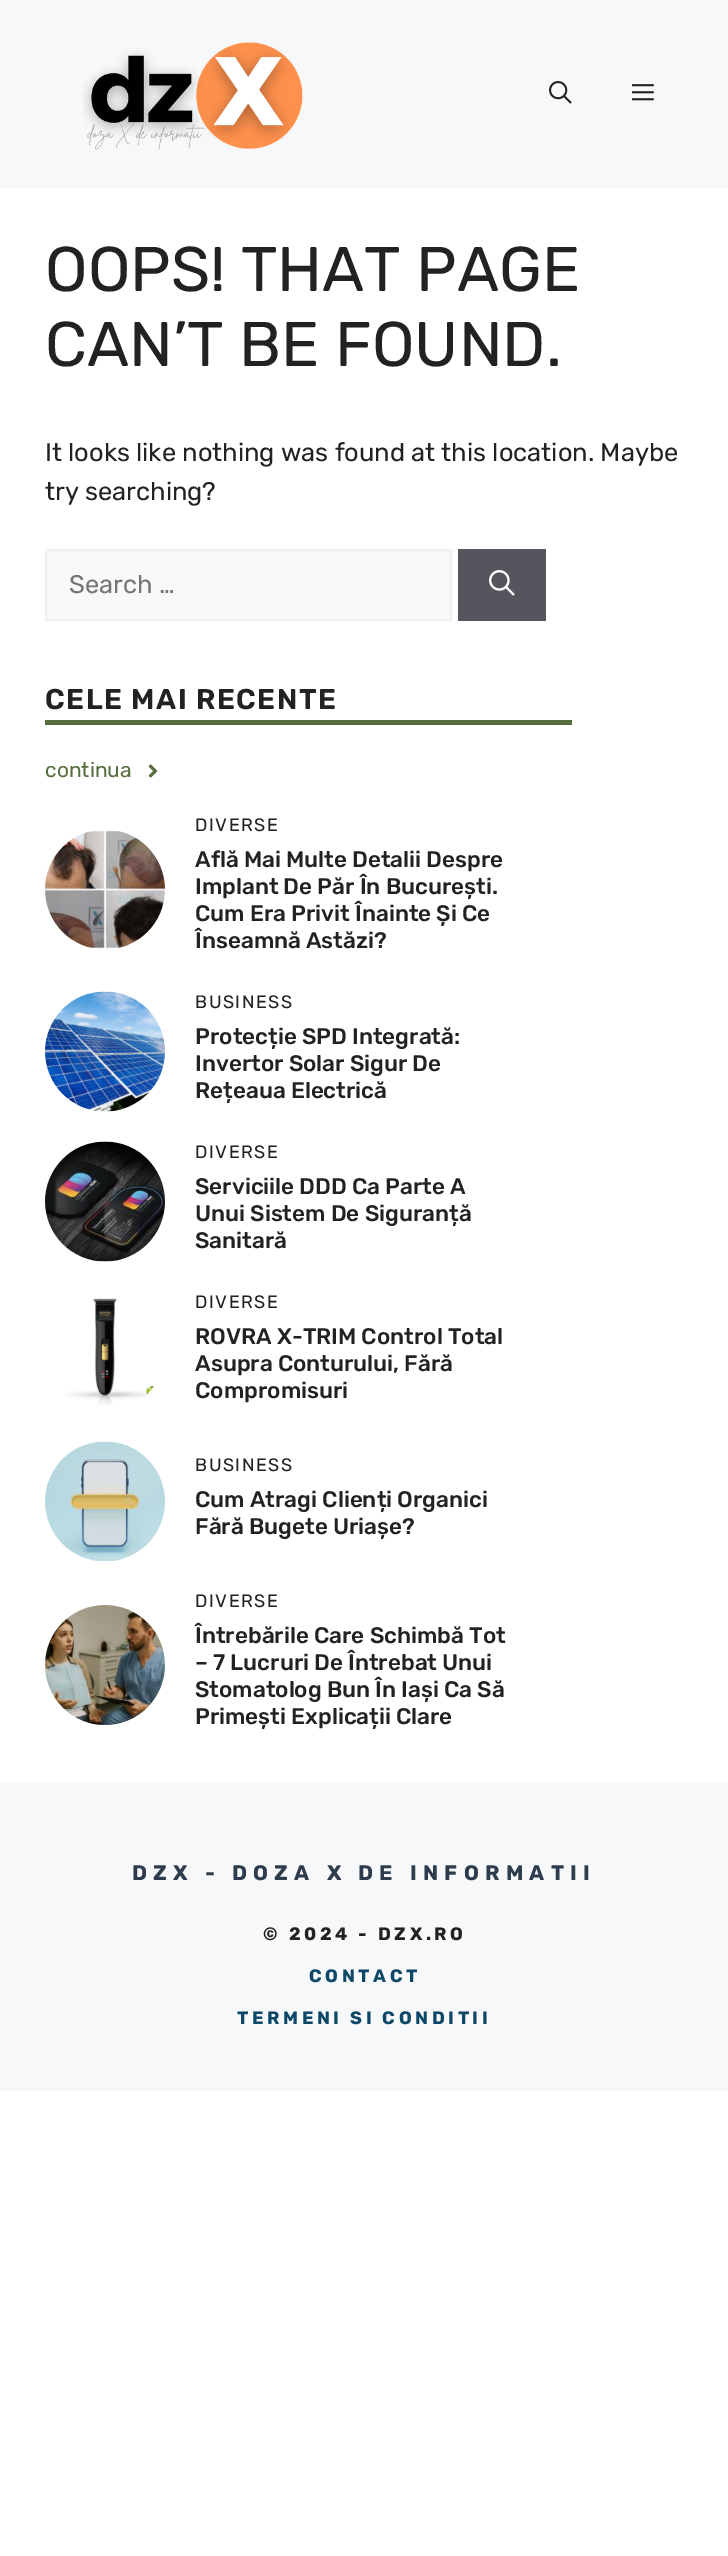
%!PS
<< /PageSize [728 2556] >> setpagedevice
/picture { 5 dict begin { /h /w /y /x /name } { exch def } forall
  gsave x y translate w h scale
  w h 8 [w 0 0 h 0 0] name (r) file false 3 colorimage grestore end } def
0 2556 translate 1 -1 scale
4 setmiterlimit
1 setgray
0 0 728 2556 rectfill
0.969 0.973 0.976 setrgbcolor
0 0 728 188 rectfill
(img1.rgb) 83 42 220 108 picture
(img2.rgb) 549 81 23 23 picture
(img3.rgb) 632 84 22 17 picture
/Rubik-Regular [63 0 0 -63 0 0] selectfont
0.133 setgray
45 291 moveto (OOPS! THAT PAGE) show
45 366 moveto (CAN’T BE FOUND.) show
/Rubik-Regular [25.5 0 0 -25.5 0 0] selectfont
45 461 moveto (It looks like nothing was found at this location. Maybe) show
45 500 moveto (try searching?) show
0.969 0.973 0.976 setrgbcolor
newpath 46 550 moveto 451 550 lineto 451 620 lineto 46 620 lineto closepath gsave fill grestore
0.941 setgray
2 setlinewidth
stroke
0.459 setgray
69 593 moveto (Search …) show
0.333 0.333 0.369 setrgbcolor
458 549 88 72 rectfill
(img4.rgb) 489 570 26 26 picture
/Rubik-SemiBold [28.5 0 0 -28.5 0 0] selectfont
0.133 setgray
45 709 moveto 1.5 0 (CELE MAI RECENTE) ashow
0.337 0.431 0.239 setrgbcolor
45 720 527 5 rectfill
/Rubik-Regular [21 0 0 -21 0 0] selectfont
45 777 moveto (continua) show
(img5.rgb) 148 764 10 14 picture
(img6.rgb) 45 830 120 119 picture
/Rubik-Regular [18 0 0 -18 0 0] selectfont
0.133 setgray
195 831 moveto 1.5 0 (DIVERSE) ashow
/Rubik-Medium [22.5 0 0 -22.5 0 0] selectfont
195 867 moveto (Află Mai Multe Detalii Despre) show
195 894 moveto (Implant De Păr În București.) show
195 921 moveto (Cum Era Privit Înainte Și Ce) show
195 948 moveto (Înseamnă Astăzi?) show
(img7.rgb) 45 991 120 121 picture
/Rubik-Regular [18 0 0 -18 0 0] selectfont
195 1008 moveto 1.5 0 (BUSINESS) ashow
/Rubik-Medium [22.5 0 0 -22.5 0 0] selectfont
195 1044 moveto (Protecție SPD Integrată:) show
195 1071 moveto (Invertor Solar Sigur De) show
195 1098 moveto (Rețeaua Electrică) show
(img8.rgb) 45 1141 120 121 picture
/Rubik-Regular [18 0 0 -18 0 0] selectfont
195 1158 moveto 1.5 0 (DIVERSE) ashow
/Rubik-Medium [22.5 0 0 -22.5 0 0] selectfont
195 1194 moveto (Serviciile DDD Ca Parte A) show
195 1221 moveto (Unui Sistem De Siguranță) show
195 1248 moveto (Sanitară) show
(img9.rgb) 64 1298 90 108 picture
/Rubik-Regular [18 0 0 -18 0 0] selectfont
195 1308 moveto 1.5 0 (DIVERSE) ashow
/Rubik-Medium [22.5 0 0 -22.5 0 0] selectfont
195 1344 moveto (ROVRA X-TRIM Control Total) show
195 1371 moveto (Asupra Conturului, Fără) show
195 1398 moveto (Compromisuri) show
(img10.rgb) 45 1441 120 121 picture
/Rubik-Regular [18 0 0 -18 0 0] selectfont
195 1471 moveto 1.5 0 (BUSINESS) ashow
/Rubik-Medium [22.5 0 0 -22.5 0 0] selectfont
195 1507 moveto (Cum Atragi Clienți Organici) show
195 1534 moveto (Fără Bugete Uriașe?) show
(img11.rgb) 45 1605 120 120 picture
/Rubik-Regular [18 0 0 -18 0 0] selectfont
195 1607 moveto 1.5 0 (DIVERSE) ashow
/Rubik-Medium [22.5 0 0 -22.5 0 0] selectfont
195 1643 moveto (Întrebările Care Schimbă Tot) show
195 1670 moveto (– 7 Lucruri De Întrebat Unui) show
195 1697 moveto (Stomatolog Bun În Iași Ca Să) show
195 1724 moveto (Primești Explicații Clare) show
0.969 0.973 0.976 setrgbcolor
0 1782 728 309 rectfill
/Rubik-Bold [21 0 0 -21 0 0] selectfont
0.18 0.239 0.302 setrgbcolor
132 1880 moveto 6.3 0 (DZX - DOZA X DE INFORMATII) ashow
/Rubik-Bold [18 0 0 -18 0 0] selectfont
0.133 setgray
263 1940 moveto 3.6 0 (© 2024 - DZX.RO) ashow
0.047 0.278 0.404 setrgbcolor
309 1982 moveto 3.6 0 (CONTACT) ashow
237 2024 moveto 3.6 0 (TERMENI SI CONDITII) ashow
showpage
